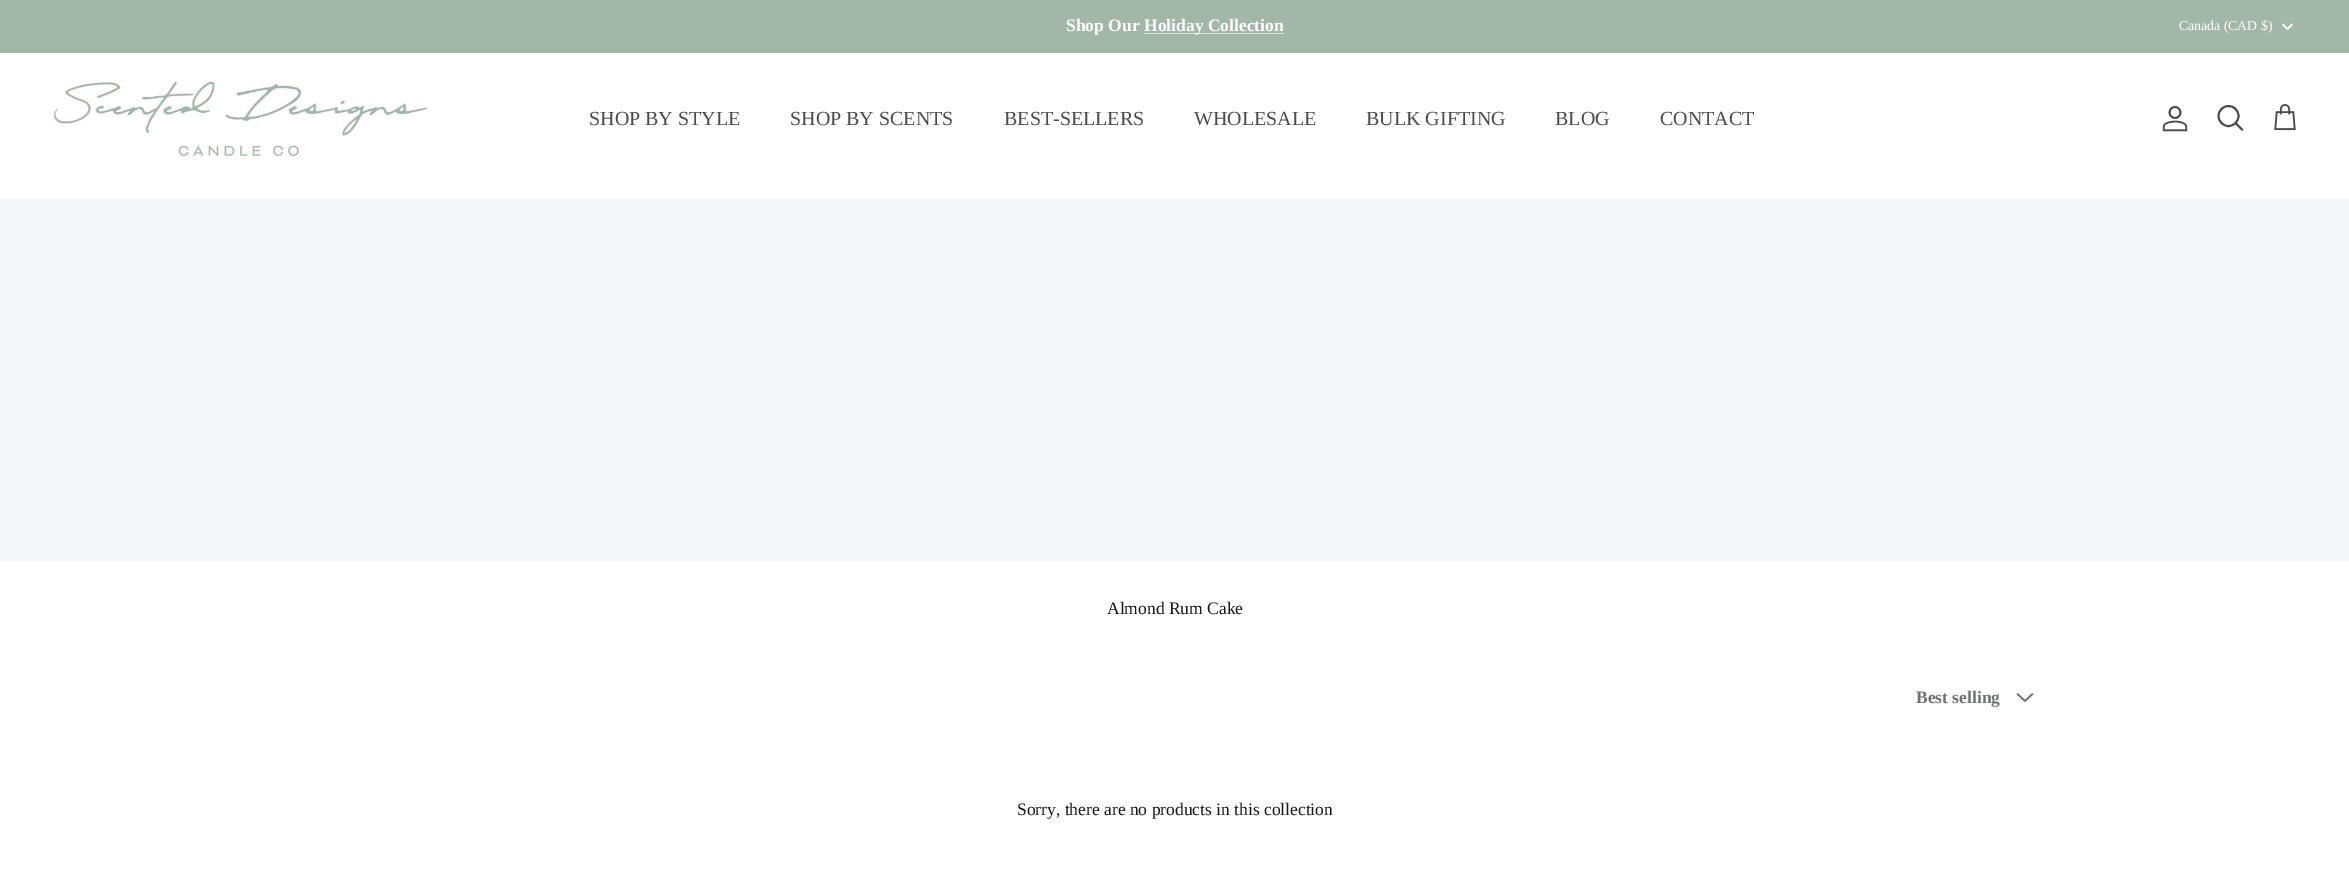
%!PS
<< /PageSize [2349 876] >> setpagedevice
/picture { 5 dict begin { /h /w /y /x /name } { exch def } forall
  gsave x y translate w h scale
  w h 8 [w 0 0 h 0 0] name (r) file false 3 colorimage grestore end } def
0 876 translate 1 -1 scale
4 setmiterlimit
1 setgray
0 0 2349 876 rectfill
0.639 0.718 0.659 setrgbcolor
0 0 2349 53 rectfill
/LiberationSerif-Bold [17.5 0 0 -17.5 0 0] selectfont
1 setgray
1066 31 moveto (Shop Our) show
0.855 0.886 0.863 setrgbcolor
1144 33 140 1 rectfill
1 setgray
1144 31 moveto (Holiday Collection) show
/LiberationSerif-Regular [13.75 0 0 -13.75 0 0] selectfont
2179 30 moveto (Canada \(CAD $\)) show
1.5 setlinewidth
1 setlinecap
1 setlinejoin
newpath 2283 24.5 moveto 2287.5 29 lineto 2292 24.5 lineto stroke
(img1.rgb) 53 80 375 77 picture
/LiberationSerif-Regular [20 0 0 -20 0 0] selectfont
0.298 0.298 0.294 setrgbcolor
589 125 moveto (SHOP BY STYLE) show
790 125 moveto (SHOP BY SCENTS) show
1004 125 moveto (BEST-SELLERS) show
1194 125 moveto (WHOLESALE) show
1366 125 moveto (BULK GIFTING) show
1555 125 moveto (BLOG) show
1660 125 moveto (CONTACT) show
(img2.rgb) 2162 106 26 26 picture
1.9 setlinewidth
0 setlinecap
0 setlinejoin
newpath 2228.5 116 10 0 360 arc closepath stroke
2 setlinecap
newpath 2236 123.5 moveto 2242 129.5 lineto stroke
(img3.rgb) 2274 104 22 27 picture
0.957 0.965 0.973 setrgbcolor
0 199 2349 362 rectfill
/LiberationSerif-Regular [17.5 0 0 -17.5 0 0] selectfont
0.09 setgray
1107 614 moveto (Almond Rum Cake) show
/LiberationSerif-Bold [17.5 0 0 -17.5 0 0] selectfont
0.439 0.443 0.451 setrgbcolor
1916 703 moveto (Best selling) show
1.6 setlinewidth
1 setlinecap
1 setlinejoin
newpath 2017.5 694 moveto 2025 701 lineto 2032.5 694 lineto stroke
/LiberationSerif-Regular [17.5 0 0 -17.5 0 0] selectfont
0.09 setgray
1017 815 moveto (Sorry, there are no products in this collection) show
showpage
